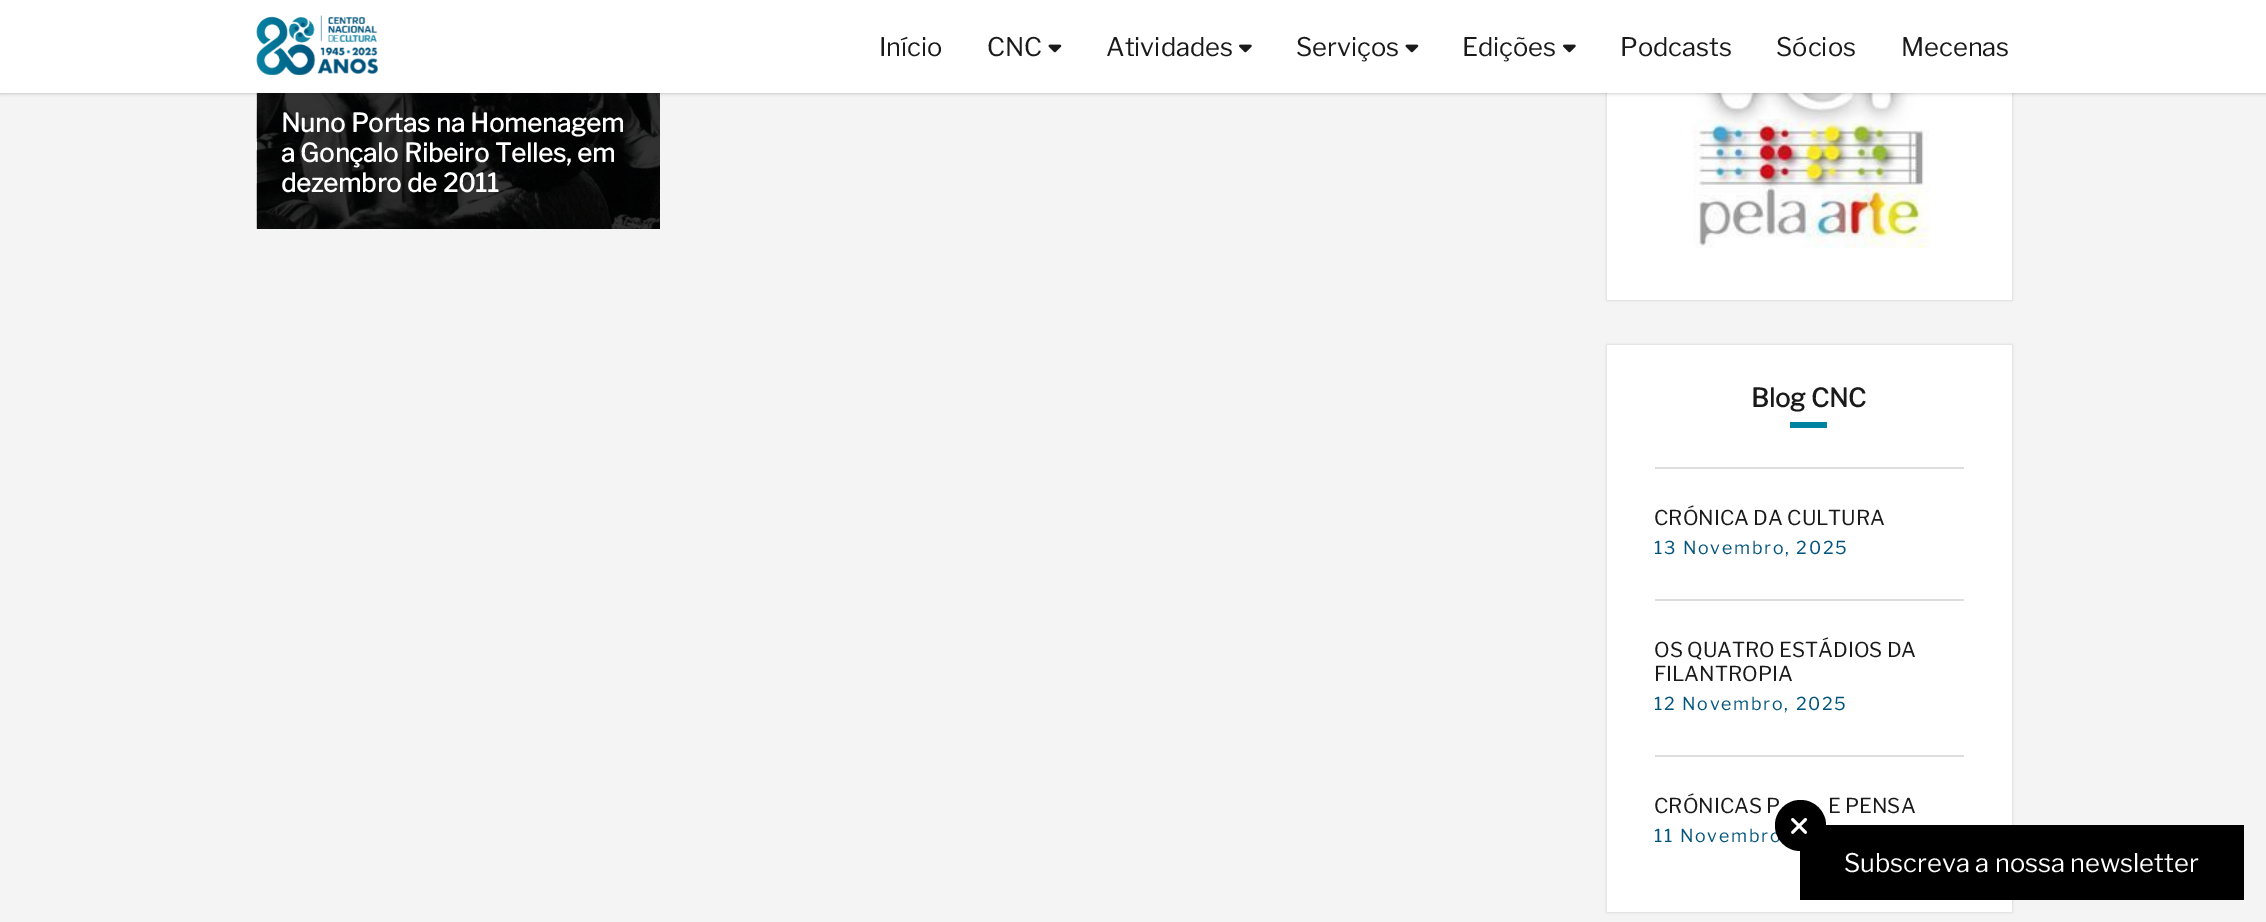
%!PS
<< /PageSize [2266 922] /PageUsesTransparency true >> setpagedevice
/alpha { dup .setfillconstantalpha .setstrokeconstantalpha } def
/roundrect { 5 dict begin { /r /h /w /y /x } { exch def } forall
  x r add y moveto x w add y 2 copy h add r arct x w add y h add x 1 index r arct
  x y h add x y r arct x y 2 copy exch w add exch r arct closepath end } def
/shadow { 12 dict begin { /a /b /q /h /w /y /x } { exch def } forall gsave /was 0 def
  9 -2 -9 { dup b mul 4 div /e exch def 1 sub .425 mul 2.718 exch exp 1 add a .99 .min exch div /now exch def
    1 1 now sub 1 was sub div sub alpha /was now def
    w h .min e 2 mul add 0 gt { x e sub y e sub w e 2 mul add h e 2 mul add
      q e add b .6 mul add w h .min 2 div e add .min 0 .max roundrect fill } if } for grestore end } def
/picture { 5 dict begin { /h /w /y /x /name } { exch def } forall
  gsave x y translate w h scale
  w h 8 [w 0 0 h 0 0] name (r) file false 3 colorimage grestore end } def
0 .pushpdf14devicefilter
0 922 translate 1 -1 scale
4 setmiterlimit
0.957 setgray
0 0 2266 922 rectfill
(img4.rgb) 256 93 404 136 picture
0.8 setgray
1607 -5 405 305 0 1.5 1 shadow
1 setgray
1607 93 405 207 rectfill
(img5.rgb) 1683 93 247 156 picture
0 setgray
0 0 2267 93 0 2 0.3 shadow
1 setgray
0 0 2266 93 rectfill
(img1.rgb) 256 15 122 60 picture
/LibreFranklin-Thin [25.5 0 0 -25.5 0 0] selectfont
0.102 setgray
879 56 moveto (Início) show
987 56 moveto (CNC) show
(img2.rgb) 1048 44 14 9 picture
1106 56 moveto (Atividades) show
(img3.rgb) 1239 44 13 9 picture
1296 56 moveto (Serviços) show
(img2.rgb) 1405 44 14 9 picture
1462 56 moveto (Edições) show
(img3.rgb) 1563 44 13 9 picture
1620 56 moveto (Podcasts) show
1776 56 moveto (Sócios) show
1901 56 moveto (Mecenas) show
/LibreFranklin-Bold [25.5 0 0 -25.5 0 0] selectfont
1 setgray
281 132 moveto (Nuno Portas na Homenagem) show
281 162 moveto (a Gonçalo Ribeiro Telles, em) show
281 192 moveto (dezembro de 2011) show
0.8 setgray
1607 345 405 567 0 1.5 1 shadow
1 setgray
1607 345 405 567 rectfill
0.102 setgray
1751 407 moveto (Blog CNC) show
0 0.51 0.635 setrgbcolor
1790 422 37 6 rectfill
0.867 setgray
1655 467 309 2 rectfill
/LibreFranklin-Thin [20.4 0 0 -20.4 0 0] selectfont
0.102 setgray
1654 525 moveto (CRÓNICA DA CULTURA) show
/LibreFranklin-Thin [17.8 0 0 -17.8 0 0] selectfont
0.004 0.329 0.486 setrgbcolor
1654 554 moveto 1.75 0 (13 Novembro, 2025) ashow
0.867 setgray
1655 599 309 2 rectfill
/LibreFranklin-Thin [20.4 0 0 -20.4 0 0] selectfont
0.102 setgray
1654 657 moveto (OS QUATRO ESTÁDIOS DA) show
1654 681 moveto (FILANTROPIA) show
/LibreFranklin-Thin [17.8 0 0 -17.8 0 0] selectfont
0.004 0.329 0.486 setrgbcolor
1654 710 moveto 1.75 0 (12 Novembro, 2025) ashow
0.867 setgray
1655 755 309 2 rectfill
/LibreFranklin-Thin [20.4 0 0 -20.4 0 0] selectfont
0.102 setgray
1654 813 moveto (CRÓNICAS P) show
1828 813 moveto (E PENSA) show
/LibreFranklin-Thin [17.8 0 0 -17.8 0 0] selectfont
0.004 0.329 0.486 setrgbcolor
1654 842 moveto 1.75 0 (11 Novembro) ashow
0 setgray
1800 825 444 75 rectfill
newpath 1800.5 825.5 25.5 0 360 arc closepath fill
(img6.rgb) 1791 818 16 16 picture
/LibreFranklin-Thin [25.5 0 0 -25.5 0 0] selectfont
1 setgray
1844 872 moveto (Subscreva a nossa newsletter) show
.poppdf14devicefilter showpage
